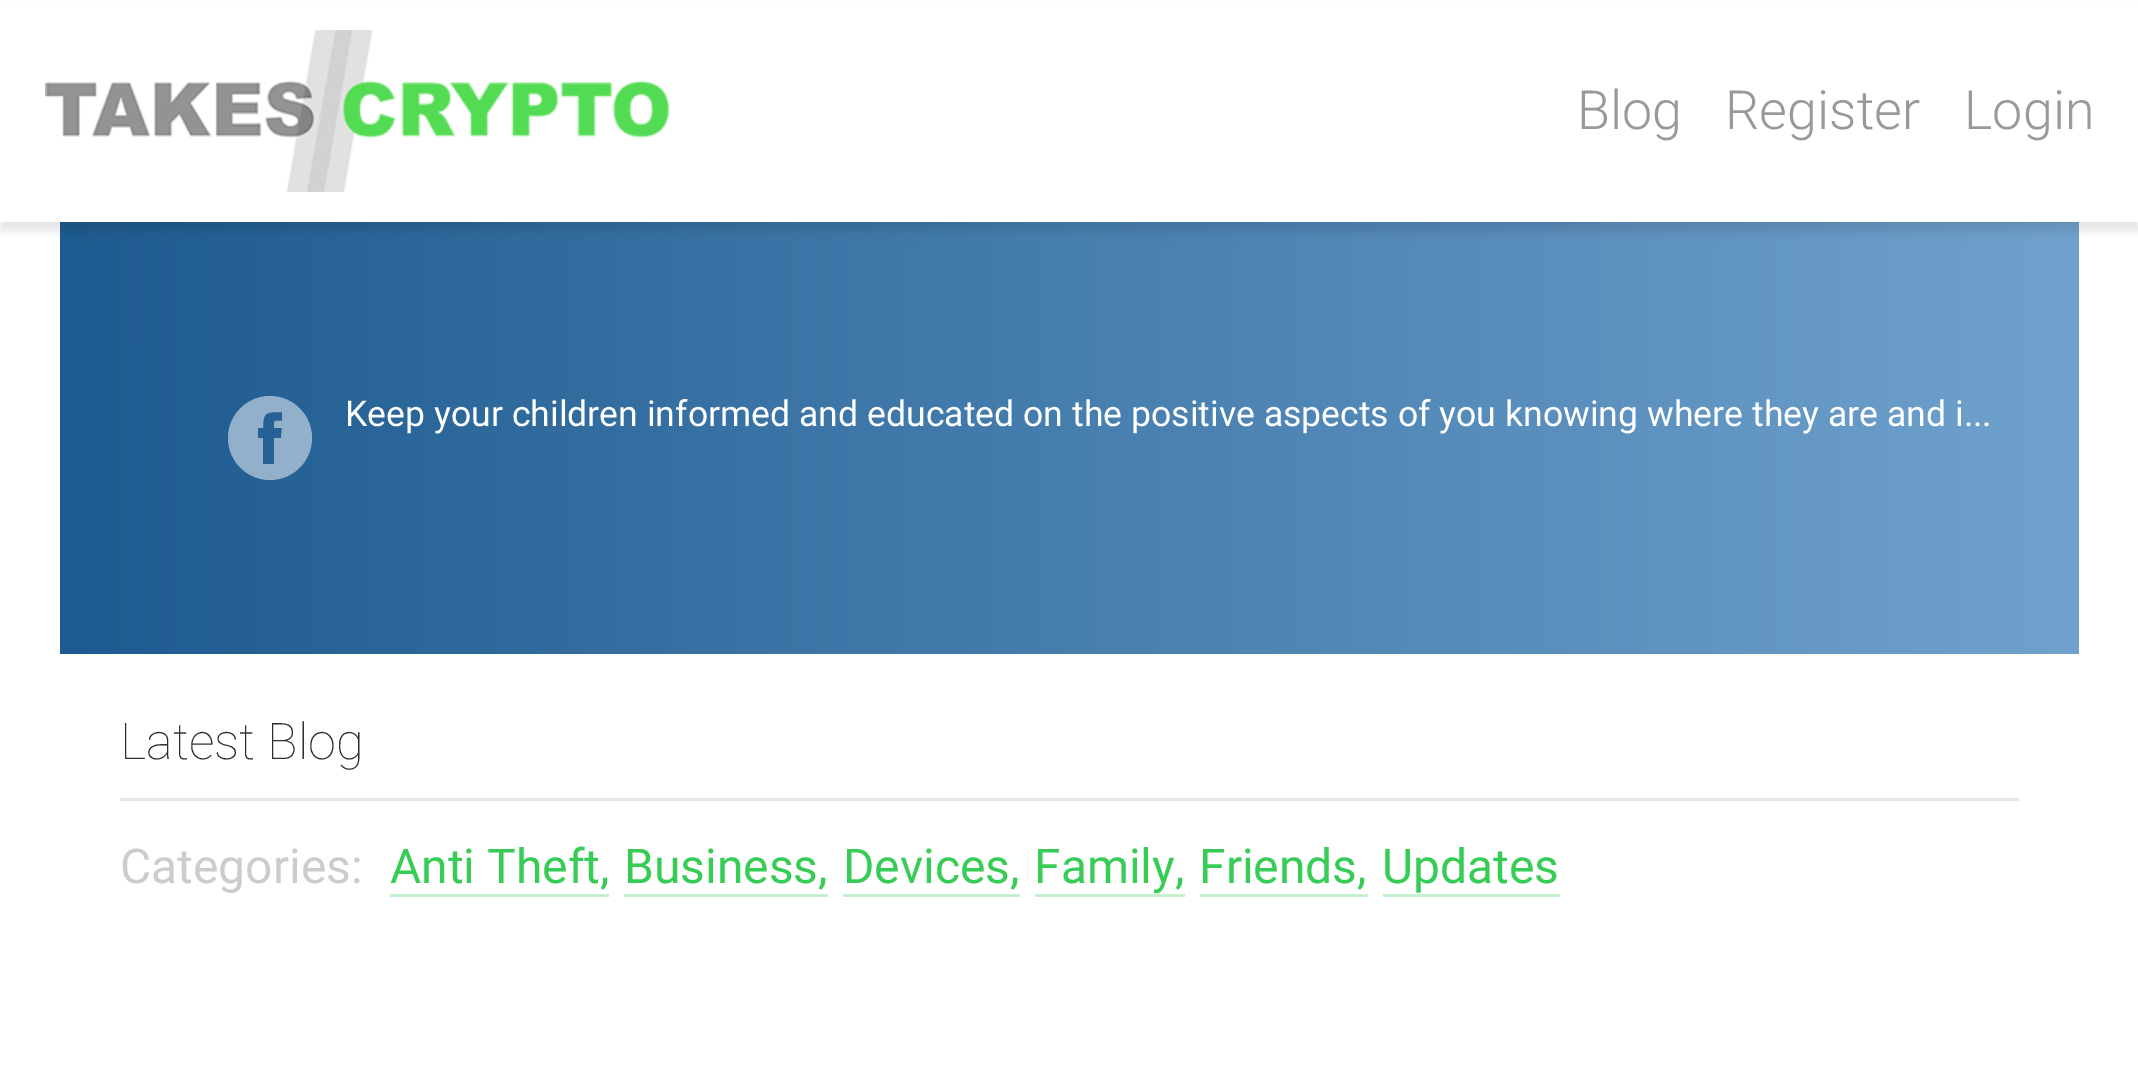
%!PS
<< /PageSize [2138 1079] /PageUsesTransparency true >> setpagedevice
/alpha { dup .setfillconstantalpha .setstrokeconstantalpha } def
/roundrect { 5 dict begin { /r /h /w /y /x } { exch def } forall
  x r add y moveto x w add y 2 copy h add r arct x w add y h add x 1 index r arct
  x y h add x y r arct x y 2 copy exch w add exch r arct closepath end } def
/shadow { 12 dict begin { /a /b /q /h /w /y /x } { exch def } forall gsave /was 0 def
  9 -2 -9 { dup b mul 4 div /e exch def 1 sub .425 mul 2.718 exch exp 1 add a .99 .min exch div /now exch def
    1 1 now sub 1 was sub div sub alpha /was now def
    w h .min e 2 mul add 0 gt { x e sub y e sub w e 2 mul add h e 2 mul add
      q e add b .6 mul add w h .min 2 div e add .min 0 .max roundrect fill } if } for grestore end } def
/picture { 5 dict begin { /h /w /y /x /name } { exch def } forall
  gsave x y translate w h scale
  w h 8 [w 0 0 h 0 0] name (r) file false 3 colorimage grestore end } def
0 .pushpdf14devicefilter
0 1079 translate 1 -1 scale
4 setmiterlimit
1 setgray
0 0 2138 1079 rectfill
gsave newpath 60 222 moveto 2079 222 lineto 2079 654 lineto 60 654 lineto closepath clip newpath
<< /ShadingType 2 /ColorSpace /DeviceRGB /Coords [60 -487 2079 -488] /Extend [true true] /Function << /FunctionType 2 /Domain [0 1] /C0 [0.114 0.353 0.561] /C1 [0.439 0.635 0.804] /N 1 >> >> shfill grestore
0 setgray
0 9 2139 222 0 4.5 0.1 shadow
1 setgray
0 3 2138 219 rectfill
(img1.rgb) 45 30 625 162 picture
/Roboto-Light [54 0 0 -54 0 0] selectfont
0.6 setgray
1577 129 moveto (Blog) show
1725 129 moveto (Register) show
1964 129 moveto (Login) show
0.5 alpha
1 setgray
newpath 270 396 moveto 247 396 228 415 228 438 curveto 228 461 247 480 270 480 curveto 293 480 312 461 312 438 curveto 312 415 293 396 270 396 curveto closepath 281 438 moveto 274 438 lineto 274 464 lineto 263 464 lineto 263 438 lineto 258 438 lineto 258 428 lineto 263 428 lineto 263 412 266 412 282 412 curveto 282 421 lineto 274 421 274 419 274 428 curveto 282 428 lineto closepath fill
/Roboto-Regular [35.65 0 0 -35.65 0 0] selectfont
1 alpha
345 426 moveto (Keep your children informed and educated on the positive aspects of you knowing where they are and i...) show
0.902 setgray
120 798 1899 3 rectfill
/Roboto-Thin [50.5 0 0 -50.5 0 0] selectfont
0.184 setgray
120 759 moveto (Latest Blog) show
/Roboto-Regular [48 0 0 -48 0 0] selectfont
0.8 setgray
120 883 moveto (Categories:) show
0.216 0.8 0.337 setrgbcolor
390 883 moveto (Anti Theft,) show
0.765 0.941 0.804 setrgbcolor
390 894 219 3 rectfill
0.216 0.8 0.337 setrgbcolor
624 883 moveto (Business,) show
0.765 0.941 0.804 setrgbcolor
624 894 204 3 rectfill
0.216 0.8 0.337 setrgbcolor
843 883 moveto (Devices,) show
0.765 0.941 0.804 setrgbcolor
843 894 177 3 rectfill
0.216 0.8 0.337 setrgbcolor
1034 883 moveto (Family,) show
0.765 0.941 0.804 setrgbcolor
1035 894 150 3 rectfill
0.216 0.8 0.337 setrgbcolor
1199 883 moveto (Friends,) show
0.765 0.941 0.804 setrgbcolor
1200 894 168 3 rectfill
0.216 0.8 0.337 setrgbcolor
1382 883 moveto (Updates) show
0.765 0.941 0.804 setrgbcolor
1383 894 177 3 rectfill
.poppdf14devicefilter showpage
